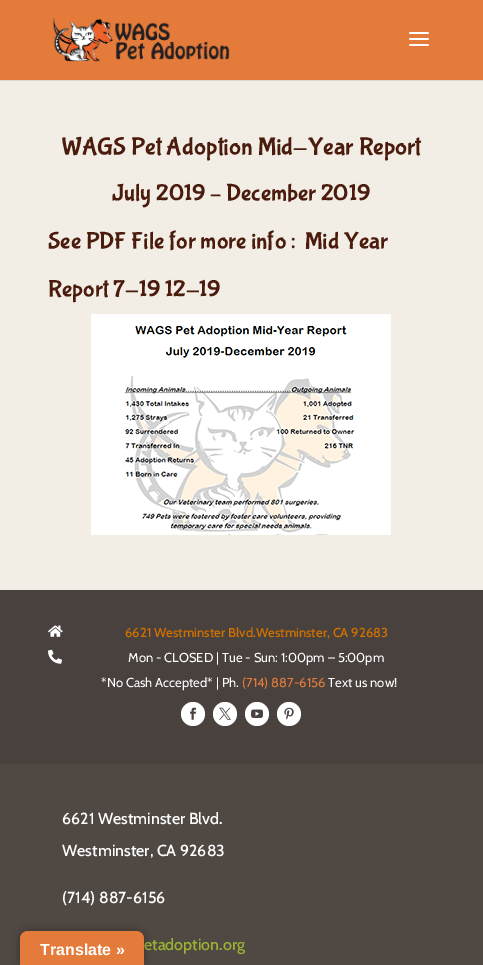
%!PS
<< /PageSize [483 965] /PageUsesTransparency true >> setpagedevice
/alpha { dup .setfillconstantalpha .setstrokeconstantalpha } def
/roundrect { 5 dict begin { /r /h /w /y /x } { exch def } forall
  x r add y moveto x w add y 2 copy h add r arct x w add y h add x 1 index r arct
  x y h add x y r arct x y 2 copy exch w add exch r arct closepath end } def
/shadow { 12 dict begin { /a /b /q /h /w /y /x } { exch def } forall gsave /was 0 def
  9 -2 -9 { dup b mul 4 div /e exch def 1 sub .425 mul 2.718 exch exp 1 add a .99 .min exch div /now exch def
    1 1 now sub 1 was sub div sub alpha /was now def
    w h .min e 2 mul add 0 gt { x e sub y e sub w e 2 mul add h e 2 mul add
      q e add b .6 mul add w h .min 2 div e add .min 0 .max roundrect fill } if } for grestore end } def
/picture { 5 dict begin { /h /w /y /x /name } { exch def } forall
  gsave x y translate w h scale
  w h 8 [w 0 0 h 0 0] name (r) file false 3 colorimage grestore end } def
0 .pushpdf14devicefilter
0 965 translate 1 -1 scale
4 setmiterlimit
0.31 0.282 0.263 setrgbcolor
0 0 483 965 rectfill
0.855 0.839 0.808 setrgbcolor
0 80 483 1 rectfill
0.894 0.482 0.231 setrgbcolor
0 0 483 80 rectfill
(img1.rgb) 52 18 178 44 picture
(img2.rgb) 409 32 20 14 picture
0.949 0.933 0.898 setrgbcolor
0 81 483 509 rectfill
/BubblegumSans-Regular [25 0 0 -25 0 0] selectfont
0.294 0.11 0.055 setrgbcolor
62 154 moveto (WAGS Pet Adoption Mid-Year Report) show
/BubblegumSans-Regular [24 0 0 -24 0 0] selectfont
112 200 moveto (July 2019 – December 2019) show
48 248 moveto (See PDF File for more info :) show
305 248 moveto (Mid Year) show
48 296 moveto (Report 7-19 12-19) show
(img3.rgb) 91 314 300 221 picture
0.286 0.255 0.243 setrgbcolor
0 590 483 174 rectfill
(img4.rgb) 48 625 15 12 picture
/Cabin-Medium [13 0 0 -13 0 0] selectfont
0.812 0.439 0 setrgbcolor
125 637 moveto (6621 Westminster Blvd.Westminster, CA 92683) show
(img5.rgb) 48 649 14 15 picture
/Cabin-Regular [13 0 0 -13 0 0] selectfont
1 setgray
128 662 moveto (Mon - CLOSED | Tue - Sun: 1:00pm – 5:00pm) show
101 687 moveto (*No Cash Accepted* | Ph.) show
0.894 0.482 0.231 setrgbcolor
242 687 moveto (\(714\) 887-6156) show
1 setgray
328 687 moveto (Text us now!) show
newpath 193 714 12 0 360 arc closepath fill
(img6.rgb) 190 707 6 13 picture
newpath 225 714 12 0 360 arc closepath fill
(img7.rgb) 219 707 12 13 picture
newpath 257 714 12 0 360 arc closepath fill
(img8.rgb) 251 709 12 9 picture
newpath 289 714 12 0 360 arc closepath fill
(img9.rgb) 284 707 10 13 picture
/Cabin-Medium [16 0 0 -16 0 0] selectfont
62 824 moveto (6621 Westminster Blvd.) show
62 856 moveto (Westminster, CA 92683) show
62 903 moveto (\(714\) 887-6156) show
0.608 0.698 0.196 setrgbcolor
144 950 moveto (etadoption.org) show
0 setgray
20 931 124 34 8 4.5 0.3 shadow
0.894 0.482 0.231 setrgbcolor
newpath 28 931 moveto 136 931 lineto 140.5 931 144 934.5 144 939 curveto 144 965 lineto 20 965 lineto 20 939 lineto 20 934.5 23.5 931 28 931 curveto closepath fill
/LiberationSans-Bold [16 0 0 -16 0 0] selectfont
1 setgray
40 955 moveto (Translate ») show
.poppdf14devicefilter showpage
